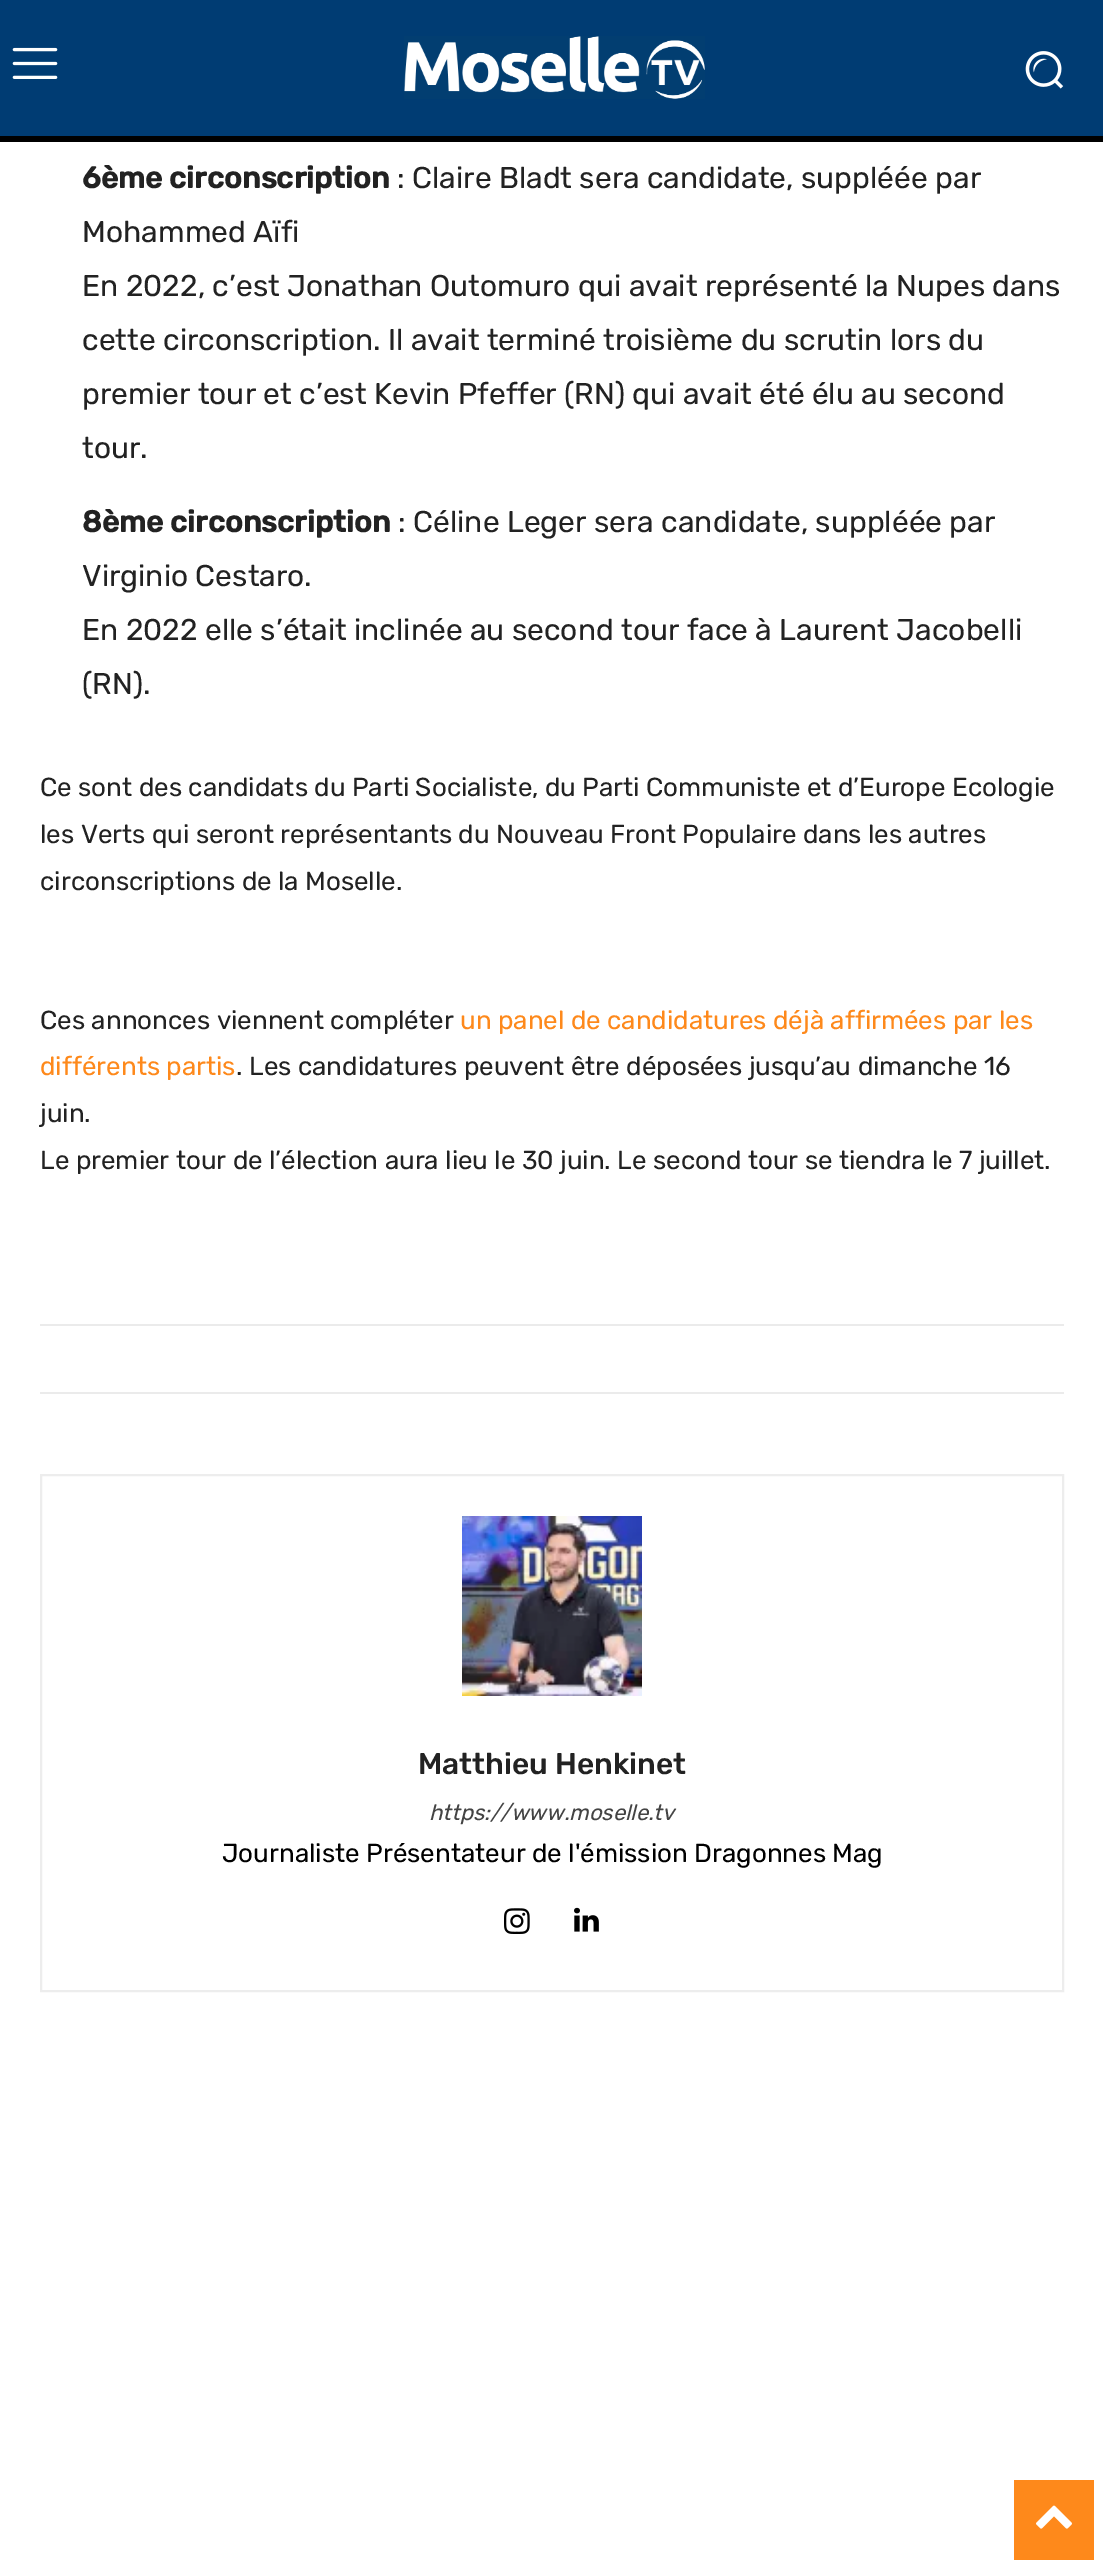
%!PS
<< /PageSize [1103 2567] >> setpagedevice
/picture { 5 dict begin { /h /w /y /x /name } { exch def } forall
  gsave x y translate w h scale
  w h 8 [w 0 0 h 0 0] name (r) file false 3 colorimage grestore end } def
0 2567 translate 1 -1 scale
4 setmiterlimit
1 setgray
0 0 1103 2567 rectfill
0 0.235 0.451 setrgbcolor
0 0 1103 136 rectfill
(img1.rgb) 12 47 46 32 picture
(img2.rgb) 404 36 301 63 picture
(img3.rgb) 1025 51 39 38 picture
0 setgray
0 136 1103 6 rectfill
/Rubik-Bold [30 0 0 -30 0 0] selectfont
0.133 setgray
82 188 moveto (6ème circonscription) show
/Rubik-Regular [30 0 0 -30 0 0] selectfont
397 188 moveto (: Claire Bladt sera candidate, suppléée par) show
82 242 moveto (Mohammed Aïfi) show
82 296 moveto (En 2022, c’est Jonathan Outomuro qui avait représenté la Nupes dans) show
82 350 moveto (cette circonscription. Il avait terminé troisième du scrutin lors du) show
82 404 moveto (premier tour et c’est Kevin Pfeffer \(RN\) qui avait été élu au second) show
82 458 moveto (tour.) show
/Rubik-Bold [30 0 0 -30 0 0] selectfont
82 532 moveto (8ème circonscription) show
/Rubik-Regular [30 0 0 -30 0 0] selectfont
398 532 moveto (: Céline Leger sera candidate, suppléée par) show
82 586 moveto (Virginio Cestaro.) show
82 640 moveto (En 2022 elle s’était inclinée au second tour face à Laurent Jacobelli) show
82 694 moveto (\(RN\).) show
/Rubik-Regular [26 0 0 -26 0 0] selectfont
40 796 moveto (Ce sont des candidats du Parti Socialiste, du Parti Communiste et d’Europe Ecologie) show
40 843 moveto (les Verts qui seront représentants du Nouveau Front Populaire dans les autres) show
40 890 moveto (circonscriptions de la Moselle.) show
40 1029 moveto (Ces annonces viennent compléter) show
0.996 0.537 0.106 setrgbcolor
460 1029 moveto (un panel de candidatures déjà affirmées par les) show
40 1075 moveto (différents partis) show
0.133 setgray
236 1075 moveto (. Les candidatures peuvent être déposées jusqu’au dimanche 16) show
40 1122 moveto (juin.) show
40 1169 moveto (Le premier tour de l’élection aura lieu le 30 juin. Le second tour se tiendra le 7 juillet.) show
0.922 setgray
40 1324 1024 2 rectfill
40 1392 1024 2 rectfill
0.929 setgray
2 setlinewidth
41 1475 1022 516 rectstroke
(img4.rgb) 462 1516 180 180 picture
/Rubik-Medium [30 0 0 -30 0 0] selectfont
0.133 setgray
418 1774 moveto (Matthieu Henkinet) show
/Rubik-Italic [22 0 0 -22 0 0] selectfont
0.267 setgray
429 1820 moveto (https://www.moselle.tv) show
/Rubik-Regular [26 0 0 -26 0 0] selectfont
0 setgray
222 1862 moveto (Journaliste Présentateur de l'émission Dragonnes Mag) show
(img5.rgb) 504 1908 26 26 picture
(img6.rgb) 574 1907 25 25 picture
0.996 0.537 0.106 setrgbcolor
1014 2480 80 80 rectfill
(img7.rgb) 1036 2505 36 24 picture
showpage
